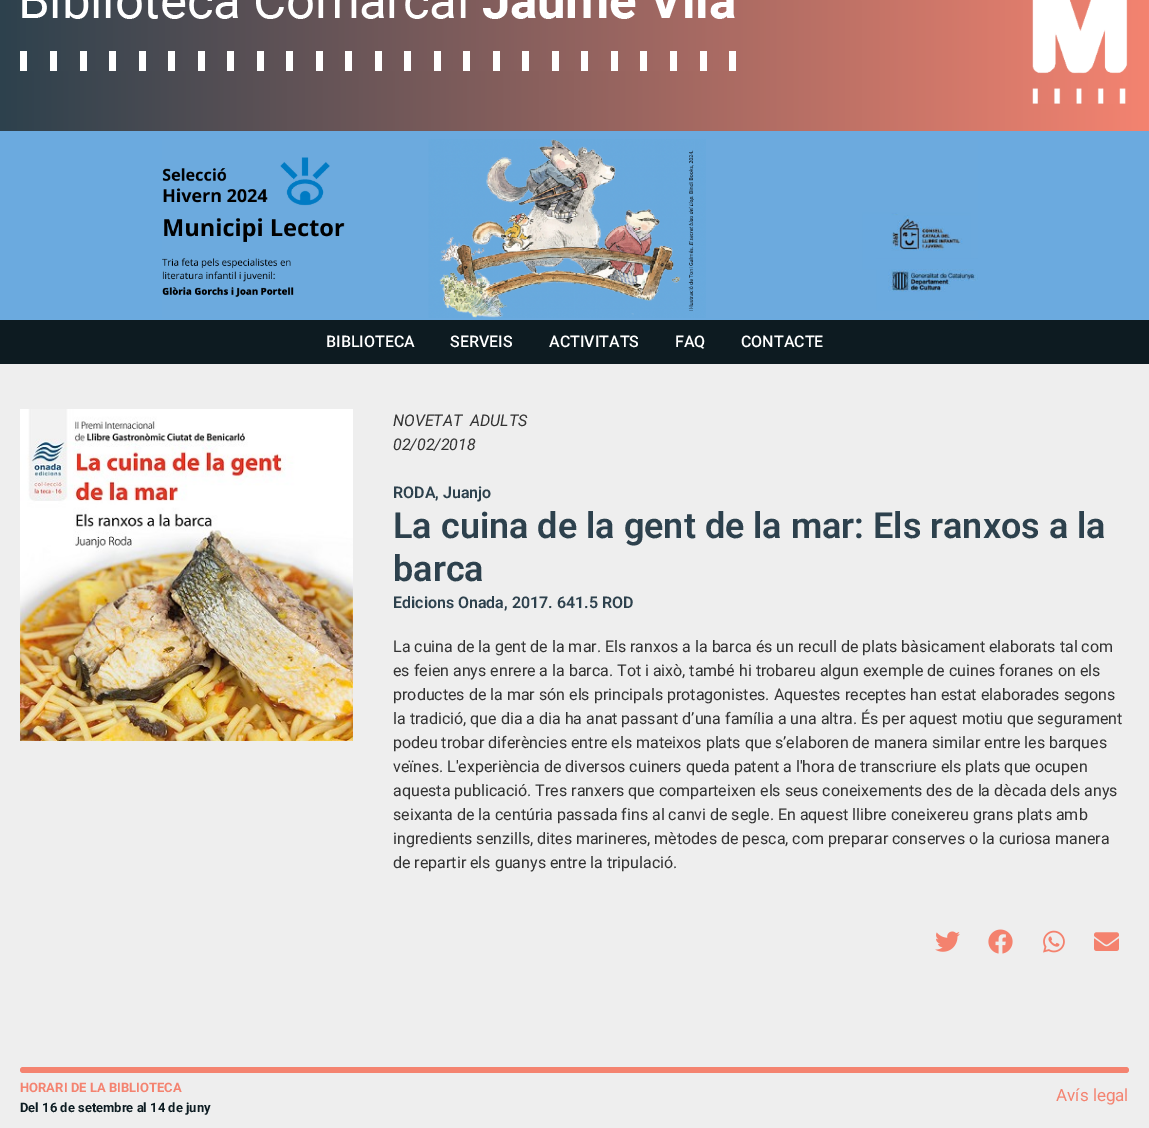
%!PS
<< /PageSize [1149 1128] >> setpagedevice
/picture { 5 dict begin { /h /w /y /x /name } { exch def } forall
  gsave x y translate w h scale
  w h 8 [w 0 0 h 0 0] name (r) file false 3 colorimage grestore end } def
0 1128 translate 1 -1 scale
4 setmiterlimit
0.933 setgray
0 0 1149 1128 rectfill
gsave newpath 0 0 moveto 1149 0 lineto 1149 131 lineto 0 131 lineto closepath clip newpath
<< /ShadingType 2 /ColorSpace /DeviceRGB /Coords [0 23 1149 23] /Extend [true true] /Function << /FunctionType 2 /Domain [0 1] /C0 [0.176 0.255 0.302] /C1 [0.957 0.514 0.439] /N 1 >> >> shfill grestore
(img1.rgb) 20 0 716 71 picture
(img2.rgb) 1032 0 96 104 picture
0.42 0.667 0.875 setrgbcolor
0 131 1149 189 rectfill
(img3.rgb) 162 139 816 179 picture
0.051 0.106 0.129 setrgbcolor
0 320 1149 44 rectfill
/Roboto-Medium [16 0 0 -16 0 0] selectfont
1 setgray
326 347 moveto (BIBLIOTECA) show
450 347 moveto (SERVEIS) show
549 347 moveto (ACTIVITATS) show
675 347 moveto (FAQ) show
741 347 moveto (CONTACTE) show
(img4.rgb) 20 409 333 332 picture
/Roboto-Italic [16 0 0 -16 0 0] selectfont
0.2 setgray
393 426 moveto (NOVETAT  ADULTS) show
393 450 moveto (02/02/2018) show
/Roboto-SemiBold [16 0 0 -16 0 0] selectfont
0.176 0.255 0.302 setrgbcolor
393 498 moveto (RODA, Juanjo) show
/Roboto-SemiBold [36 0 0 -36 0 0] selectfont
393 538 moveto (La cuina de la gent de la mar: Els ranxos a la) show
393 581 moveto (barca) show
/Roboto-SemiBold [16 0 0 -16 0 0] selectfont
393 608 moveto (Edicions Onada, 2017. 641.5 ROD) show
/Roboto-Regular [16 0 0 -16 0 0] selectfont
0.2 setgray
393 652 moveto (La cuina de la gent de la mar. Els ranxos a la barca és un recull de plats bàsicament elaborats tal com) show
393 676 moveto (es feien anys enrere a la barca. Tot i això, també hi trobareu algun exemple de cuines foranes on els) show
393 700 moveto (productes de la mar són els principals protagonistes. Aquestes receptes han estat elaborades segons) show
393 724 moveto (la tradició, que dia a dia ha anat passant d’una família a una altra. És per aquest motiu que segurament) show
393 748 moveto (podeu trobar diferències entre els mateixos plats que s’elaboren de manera similar entre les barques) show
393 772 moveto (veïnes. L'experiència de diversos cuiners queda patent a l'hora de transcriure els plats que ocupen) show
393 796 moveto (aquesta publicació. Tres ranxers que comparteixen els seus coneixements des de la dècada dels anys) show
393 820 moveto (seixanta de la centúria passada fins al canvi de segle. En aquest llibre coneixereu grans plats amb) show
393 844 moveto (ingredients senzills, dites marineres, mètodes de pesca, com preparar conserves o la curiosa manera) show
393 868 moveto (de repartir els guanys entre la tripulació.) show
(img5.rgb) 935 931 25 21 picture
(img6.rgb) 988 929 25 25 picture
(img7.rgb) 1043 930 22 23 picture
(img8.rgb) 1094 932 25 19 picture
0.957 0.514 0.439 setrgbcolor
newpath 23 1067 moveto 575 1067 lineto 575 1073 lineto 23 1073 lineto 21.5 1073 20 1071.5 20 1070 curveto 20 1068.5 21.5 1067 23 1067 curveto closepath fill
/Roboto-Bold [13 0 0 -13 0 0] selectfont
20 1092 moveto (HORARI DE LA BIBLIOTECA) show
0.051 0.11 0.133 setrgbcolor
20 1112 moveto (Del 16 de setembre al 14 de juny) show
0.957 0.514 0.439 setrgbcolor
newpath 575 1067 moveto 1126 1067 lineto 1127.5 1067 1129 1068.5 1129 1070 curveto 1129 1071.5 1127.5 1073 1126 1073 curveto 575 1073 lineto closepath fill
/Roboto-Regular [17 0 0 -17 0 0] selectfont
1056 1101 moveto (Avís legal) show
showpage
